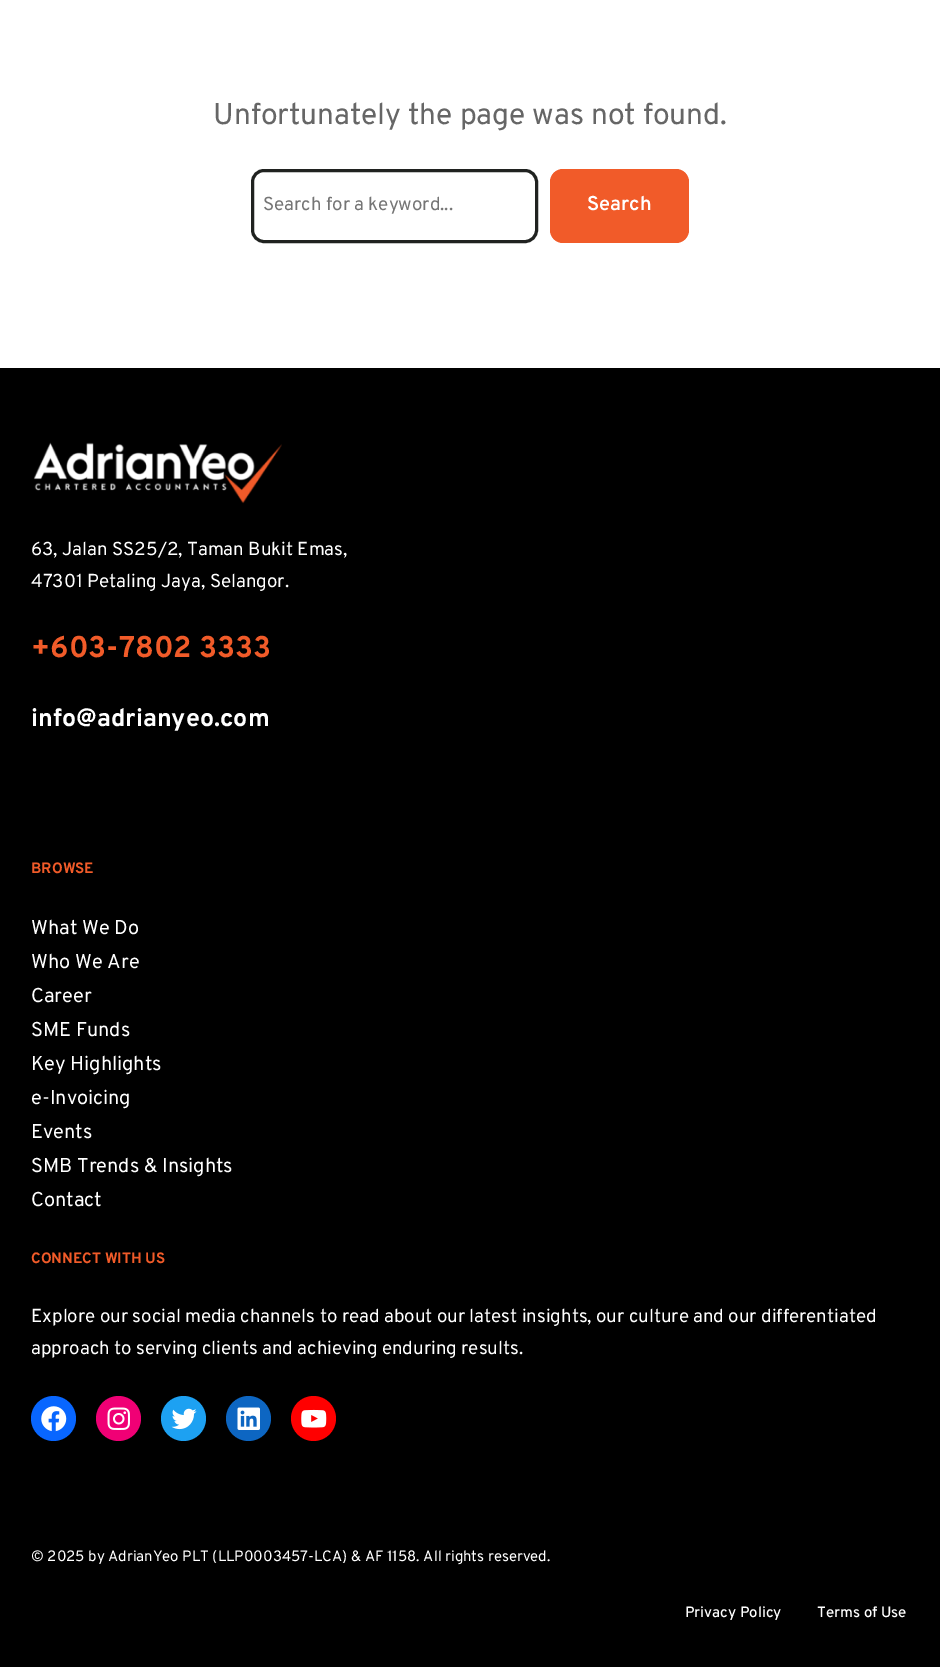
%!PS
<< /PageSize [940 1667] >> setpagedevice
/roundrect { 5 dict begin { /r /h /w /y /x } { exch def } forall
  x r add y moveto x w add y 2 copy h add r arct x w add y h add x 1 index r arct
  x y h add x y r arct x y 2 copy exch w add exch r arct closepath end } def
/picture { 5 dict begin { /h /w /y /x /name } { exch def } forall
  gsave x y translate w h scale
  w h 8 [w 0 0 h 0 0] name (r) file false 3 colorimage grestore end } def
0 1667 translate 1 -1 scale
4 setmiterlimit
1 setgray
0 0 940 1667 rectfill
/Overpass-Regular [30 0 0 -30 0 0] selectfont
0.4 setgray
213 124 moveto (Unfortunately the page was not found.) show
0.125 0.133 0.125 setrgbcolor
3 setlinewidth
252.5 170.5 284 71 11.5 roundrect stroke
/Overpass-Regular [18.75 0 0 -18.75 0 0] selectfont
0.459 setgray
263 210 moveto (Search for a keyword...) show
0.945 0.357 0.161 setrgbcolor
550 169 139 74 13 roundrect fill
/Overpass-SemiBold [20 0 0 -20 0 0] selectfont
1 setgray
587 210 moveto (Search) show
0 setgray
0 368 940 1299 rectfill
(img1.rgb) 33 442 249 62 picture
/Overpass-Regular [18.75 0 0 -18.75 0 0] selectfont
1 setgray
31 555 moveto (63, Jalan SS25/2, Taman Bukit Emas,) show
31 587 moveto (47301 Petaling Jaya, Selangor.) show
/Overpass-Bold [30 0 0 -30 0 0] selectfont
0.945 0.357 0.161 setrgbcolor
31 657 moveto (+603-7802 3333) show
/Overpass-Bold [25 0 0 -25 0 0] selectfont
1 setgray
31 726 moveto (info@adrianyeo.com) show
/Overpass-Bold [15 0 0 -15 0 0] selectfont
0.945 0.357 0.161 setrgbcolor
31 873 moveto (BROWSE) show
/Overpass-Regular [20 0 0 -20 0 0] selectfont
1 setgray
31 934 moveto (What We Do) show
31 968 moveto (Who We Are) show
31 1002 moveto (Career) show
31 1036 moveto (SME Funds) show
31 1070 moveto (Key Highlights) show
31 1104 moveto (e-Invoicing) show
31 1138 moveto (Events) show
31 1172 moveto (SMB Trends & Insights) show
31 1206 moveto (Contact) show
/Overpass-Bold [15 0 0 -15 0 0] selectfont
0.945 0.357 0.161 setrgbcolor
31 1263 moveto (CONNECT WITH US) show
/Overpass-Regular [18.75 0 0 -18.75 0 0] selectfont
1 setgray
31 1322 moveto (Explore our social media channels to read about our latest insights, our culture and our differentiated) show
31 1354 moveto (approach to serving clients and achieving enduring results.) show
0.031 0.4 1 setrgbcolor
newpath 53.5 1418.5 22.5 0 360 arc closepath fill
(img2.rgb) 41 1406 26 26 picture
0.941 0 0.459 setrgbcolor
newpath 118.5 1418.5 22.5 0 360 arc closepath fill
(img3.rgb) 107 1407 23 23 picture
0.114 0.631 0.949 setrgbcolor
newpath 183.5 1418.5 22.5 0 360 arc closepath fill
(img4.rgb) 171 1408 26 22 picture
0.051 0.4 0.761 setrgbcolor
newpath 248.5 1418.5 22.5 0 360 arc closepath fill
(img5.rgb) 237 1407 23 23 picture
1 0 0 setrgbcolor
newpath 313.5 1418.5 22.5 0 360 arc closepath fill
(img6.rgb) 301 1409 26 19 picture
/Overpass-Regular [15 0 0 -15 0 0] selectfont
1 setgray
31 1561 moveto (© 2025 by AdrianYeo PLT \(LLP0003457-LCA\) & AF 1158. All rights reserved.) show
/Overpass-Medium [15 0 0 -15 0 0] selectfont
685 1617 moveto (Privacy Policy) show
817 1617 moveto (Terms of Use) show
showpage
